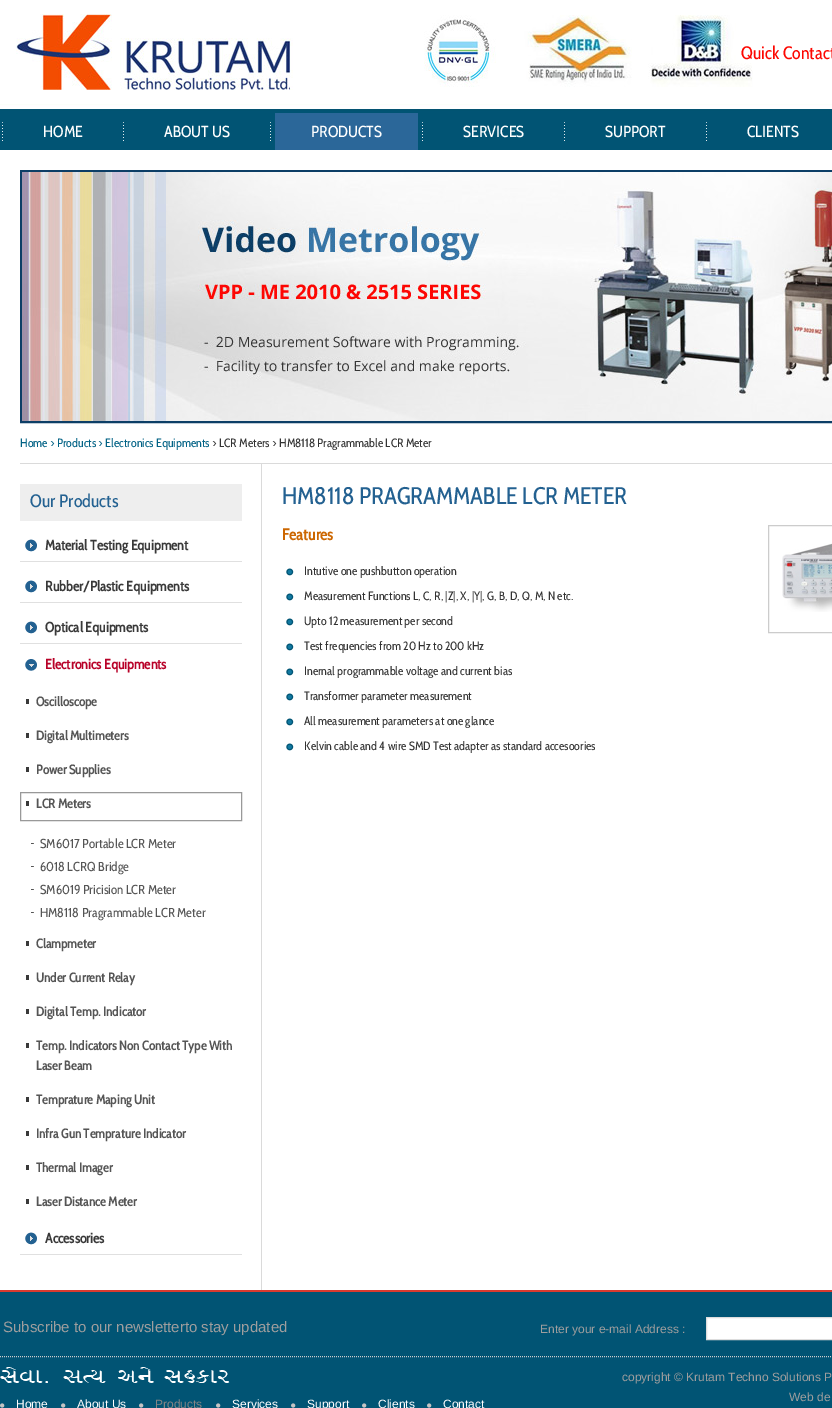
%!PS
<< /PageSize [832 1408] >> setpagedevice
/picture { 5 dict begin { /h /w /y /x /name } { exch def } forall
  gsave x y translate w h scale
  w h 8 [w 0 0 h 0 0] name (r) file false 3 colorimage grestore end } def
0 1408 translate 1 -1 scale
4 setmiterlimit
1 setgray
0 0 832 1408 rectfill
(img1.rgb) 0 0 832 150 picture
(img2.rgb) 16 14 277 76 picture
(img3.rgb) 424 15 329 72 picture
/CabinCondensed-Regular [18 0 0 -18 0 0] selectfont
0.992 0.027 0.004 setrgbcolor
741 59 moveto (Quick Contact) show
(img4.rgb) 2 122 1 19 picture
/CabinCondensed-Regular [16 0 0 -16 0 0] selectfont
1 setgray
43 137 moveto (HOME) show
(img4.rgb) 123 122 1 19 picture
164 137 moveto (ABOUT US) show
(img4.rgb) 270 122 1 19 picture
0.169 0.404 0.6 setrgbcolor
275 113 143 37 rectfill
1 setgray
311 137 moveto (PRODUCTS) show
(img4.rgb) 422 122 1 19 picture
463 137 moveto (SERVICES) show
(img4.rgb) 564 122 1 19 picture
605 137 moveto (SUPPORT) show
(img4.rgb) 706 122 1 19 picture
747 137 moveto (CLIENTS) show
0.047 0.243 0.4 setrgbcolor
20.5 170.5 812 252 rectstroke
21.5 171.5 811 250 rectstroke
(img5.rgb) 22 172 810 249 picture
/CabinCondensed-Regular [12 0 0 -12 0 0] selectfont
0.004 0.384 0.522 setrgbcolor
20 447 moveto (Home > Products > Electronics Equipments) show
0.2 setgray
212 447 moveto (> LCR Meters > HM8118 Pragrammable LCR Meter) show
0.855 setgray
20 463 812 1 rectfill
0.933 setgray
20 484 222 37 rectfill
/CabinCondensed-Regular [18 0 0 -18 0 0] selectfont
0.137 0.38 0.569 setrgbcolor
30 507 moveto (Our Products) show
(img6.rgb) 25 539 12 13 picture
0.878 setgray
20 561 222 1 rectfill
/CabinCondensed-Bold [14 0 0 -14 0 0] selectfont
0.224 setgray
45 550 moveto (Material Testing Equipment) show
(img6.rgb) 25 580 12 13 picture
0.878 setgray
20 602 222 1 rectfill
0.224 setgray
45 591 moveto (Rubber/Plastic Equipments) show
(img6.rgb) 25 621 12 13 picture
0.878 setgray
20 643 222 1 rectfill
0.224 setgray
45 632 moveto (Optical Equipments) show
(img7.rgb) 25 659 12 12 picture
0.722 0.004 0.157 setrgbcolor
45 669 moveto (Electronics Equipments) show
0.224 setgray
26 699 3 5 rectfill
/CabinCondensed-Bold [13 0 0 -13 0 0] selectfont
0.333 setgray
36 706 moveto (Oscilloscope) show
0.224 setgray
26 733 3 5 rectfill
0.333 setgray
36 740 moveto (Digital Multimeters) show
0.224 setgray
26 767 3 5 rectfill
0.333 setgray
36 774 moveto (Power Supplies) show
0.224 setgray
26 801 3 5 rectfill
0.6 setgray
20.5 792.5 221 28 rectstroke
0.333 setgray
36 808 moveto (LCR Meters) show
(img8.rgb) 31 843 3 1 picture
/CabinCondensed-Regular [13 0 0 -13 0 0] selectfont
40 848 moveto (SM6017 Portable LCR Meter) show
(img8.rgb) 31 866 3 1 picture
40 871 moveto (6018 LCRQ Bridge) show
(img8.rgb) 31 889 3 1 picture
40 894 moveto (SM6019 Pricision LCR Meter) show
(img8.rgb) 31 912 3 1 picture
40 917 moveto (HM8118 Pragrammable LCR Meter) show
0.224 setgray
26 941 3 5 rectfill
/CabinCondensed-Bold [13 0 0 -13 0 0] selectfont
0.333 setgray
36 948 moveto (Clampmeter) show
0.224 setgray
26 975 3 5 rectfill
0.333 setgray
36 982 moveto (Under Current Relay) show
0.224 setgray
26 1009 3 5 rectfill
0.333 setgray
36 1016 moveto (Digital Temp. Indicator) show
0.224 setgray
26 1043 3 5 rectfill
0.333 setgray
36 1050 moveto (Temp. Indicators Non Contact Type With) show
36 1070 moveto (Laser Beam) show
0.224 setgray
26 1097 3 5 rectfill
0.333 setgray
36 1104 moveto (Temprature Maping Unit) show
0.224 setgray
26 1131 3 5 rectfill
0.333 setgray
36 1138 moveto (Infra Gun Temprature Indicator) show
0.224 setgray
26 1165 3 5 rectfill
0.333 setgray
36 1172 moveto (Thermal Imager) show
0.224 setgray
26 1199 3 5 rectfill
0.333 setgray
36 1206 moveto (Laser Distance Meter) show
(img6.rgb) 25 1232 12 13 picture
0.878 setgray
20 1254 222 1 rectfill
/CabinCondensed-Bold [14 0 0 -14 0 0] selectfont
0.224 setgray
45 1243 moveto (Accessories) show
0.855 setgray
261 464 1 826 rectfill
/CabinCondensed-Regular [24 0 0 -24 0 0] selectfont
0.137 0.38 0.569 setrgbcolor
282 504 moveto (HM8118 PRAGRAMMABLE LCR METER) show
/CabinCondensed-Bold [16 0 0 -16 0 0] selectfont
0.8 0.4 0 setrgbcolor
282 540 moveto (Features) show
0.8 setgray
768.5 525.5 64 107 rectstroke
(img9.rgb) 782 543 50 69 picture
(img10.rgb) 286 568 8 8 picture
/CabinCondensed-Regular [12 0 0 -12 0 0] selectfont
0.2 setgray
304 575 moveto (Intutive one pushbutton operation) show
(img10.rgb) 286 593 8 8 picture
304 600 moveto (Measurement Functions L, C, R, |Z|, X, |Y|, G, B, D, Q, M, N etc.) show
(img10.rgb) 286 618 8 8 picture
304 625 moveto (Upto 12 measurement per second) show
(img10.rgb) 286 643 8 8 picture
304 650 moveto (Test frequencies from 20 Hz to 200 kHz) show
(img10.rgb) 286 668 8 8 picture
304 675 moveto (Inernal programmable voltage and current bias) show
(img10.rgb) 286 693 8 8 picture
304 700 moveto (Transformer parameter measurement) show
(img10.rgb) 286 718 8 8 picture
304 725 moveto (All measurement parameters at one glance) show
(img10.rgb) 286 743 8 8 picture
304 750 moveto (Kelvin cable and 4 wire SMD Test adapter as standard accesoories) show
0.004 0.329 0.455 setrgbcolor
0 1292 832 116 rectfill
0.847 0.227 0.184 setrgbcolor
0 1290 832 2 rectfill
/LiberationSans-Regular [15 0 0 -15 0 0] selectfont
0.624 0.62 0.62 setrgbcolor
3 1332 moveto (Subscribe to our newsletterto stay updated) show
/LiberationSans-Regular [12 0 0 -12 0 0] selectfont
540 1333 moveto (Enter your e-mail Address :) show
1 setgray
newpath 706.5 1317.5 moveto 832.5 1317.5 lineto 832.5 1339.5 lineto 706.5 1339.5 lineto closepath gsave fill grestore
0.867 setgray
stroke
0.8 setgray
[1 1] 0 setdash
newpath 0 1356.5 moveto 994 1356.5 lineto stroke
0.624 0.62 0.62 setrgbcolor
622 1381 moveto (copyright © Krutam Techno Solutions P) show
789 1401 moveto (Web de) show
(img11.rgb) 0 1367 230 16 picture
(img12.rgb) 0 1403 5 5 picture
1 setgray
16 1408 moveto (Home) show
(img12.rgb) 61 1403 5 5 picture
77 1408 moveto (About Us) show
(img12.rgb) 139 1403 5 5 picture
0.522 setgray
155 1408 moveto (Products) show
(img12.rgb) 216 1403 5 5 picture
1 setgray
232 1408 moveto (Services) show
(img12.rgb) 291 1403 5 5 picture
307 1408 moveto (Support) show
(img12.rgb) 362 1403 5 5 picture
378 1408 moveto (Clients) show
(img12.rgb) 427 1403 5 5 picture
443 1408 moveto (Contact) show
showpage
